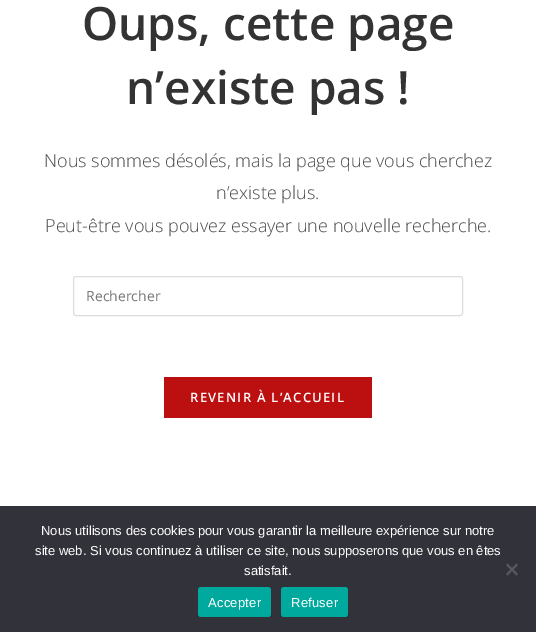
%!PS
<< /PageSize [536 632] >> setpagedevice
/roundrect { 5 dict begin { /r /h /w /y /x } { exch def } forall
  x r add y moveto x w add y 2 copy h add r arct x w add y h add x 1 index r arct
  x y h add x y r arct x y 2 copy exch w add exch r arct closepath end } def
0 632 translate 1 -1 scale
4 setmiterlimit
1 setgray
0 0 536 632 rectfill
/OpenSans-SemiBold [46 0 0 -46 0 0] selectfont
0.2 setgray
82 40 moveto (Oups, cette page) show
126 104 moveto (n’existe pas !) show
/OpenSans-Light [18 0 0 -18 0 0] selectfont
0.29 setgray
44 167 moveto (Nous sommes désolés, mais la page que vous cherchez) show
216 199 moveto (n’existe plus.) show
45 232 moveto (Peut-être vous pouvez essayer une nouvelle recherche.) show
0.867 setgray
73.5 276.5 389 39 2.5 roundrect stroke
/OpenSans-Regular [14 0 0 -14 0 0] selectfont
0.459 setgray
86 301 moveto (Rechercher) show
0.737 0.059 0.059 setrgbcolor
164 377 208 41 rectfill
/OpenSans-SemiBold [13 0 0 -13 0 0] selectfont
1 setgray
190 402 moveto 1.25 0 (REVENIR À L’ACCUEIL) ashow
0.196 0.196 0.227 setrgbcolor
0 506 536 126 rectfill
/LiberationSans-Regular [13 0 0 -13 0 0] selectfont
1 setgray
41 535 moveto (Nous utilisons des cookies pour vous garantir la meilleure expérience sur notre) show
35 555 moveto (site web. Si vous continuez à utiliser ce site, nous supposerons que vous en êtes) show
244 575 moveto (satisfait.) show
0.349 0.349 0.365 setrgbcolor
newpath 516.5 563.5 moveto 518 565 lineto 507.5 575.5 lineto 506 574 lineto closepath fill
newpath 506 565 moveto 507.5 563.5 lineto 518 574 lineto 516.5 575.5 lineto closepath fill
0 0.663 0.616 setrgbcolor
198 587 73 30 3 roundrect fill
1 setgray
208 607 moveto 0.25 0 (Accepter) ashow
0 0.663 0.616 setrgbcolor
281 587 67 30 3 roundrect fill
1 setgray
291 607 moveto 0.25 0 (Refuser) ashow
showpage
